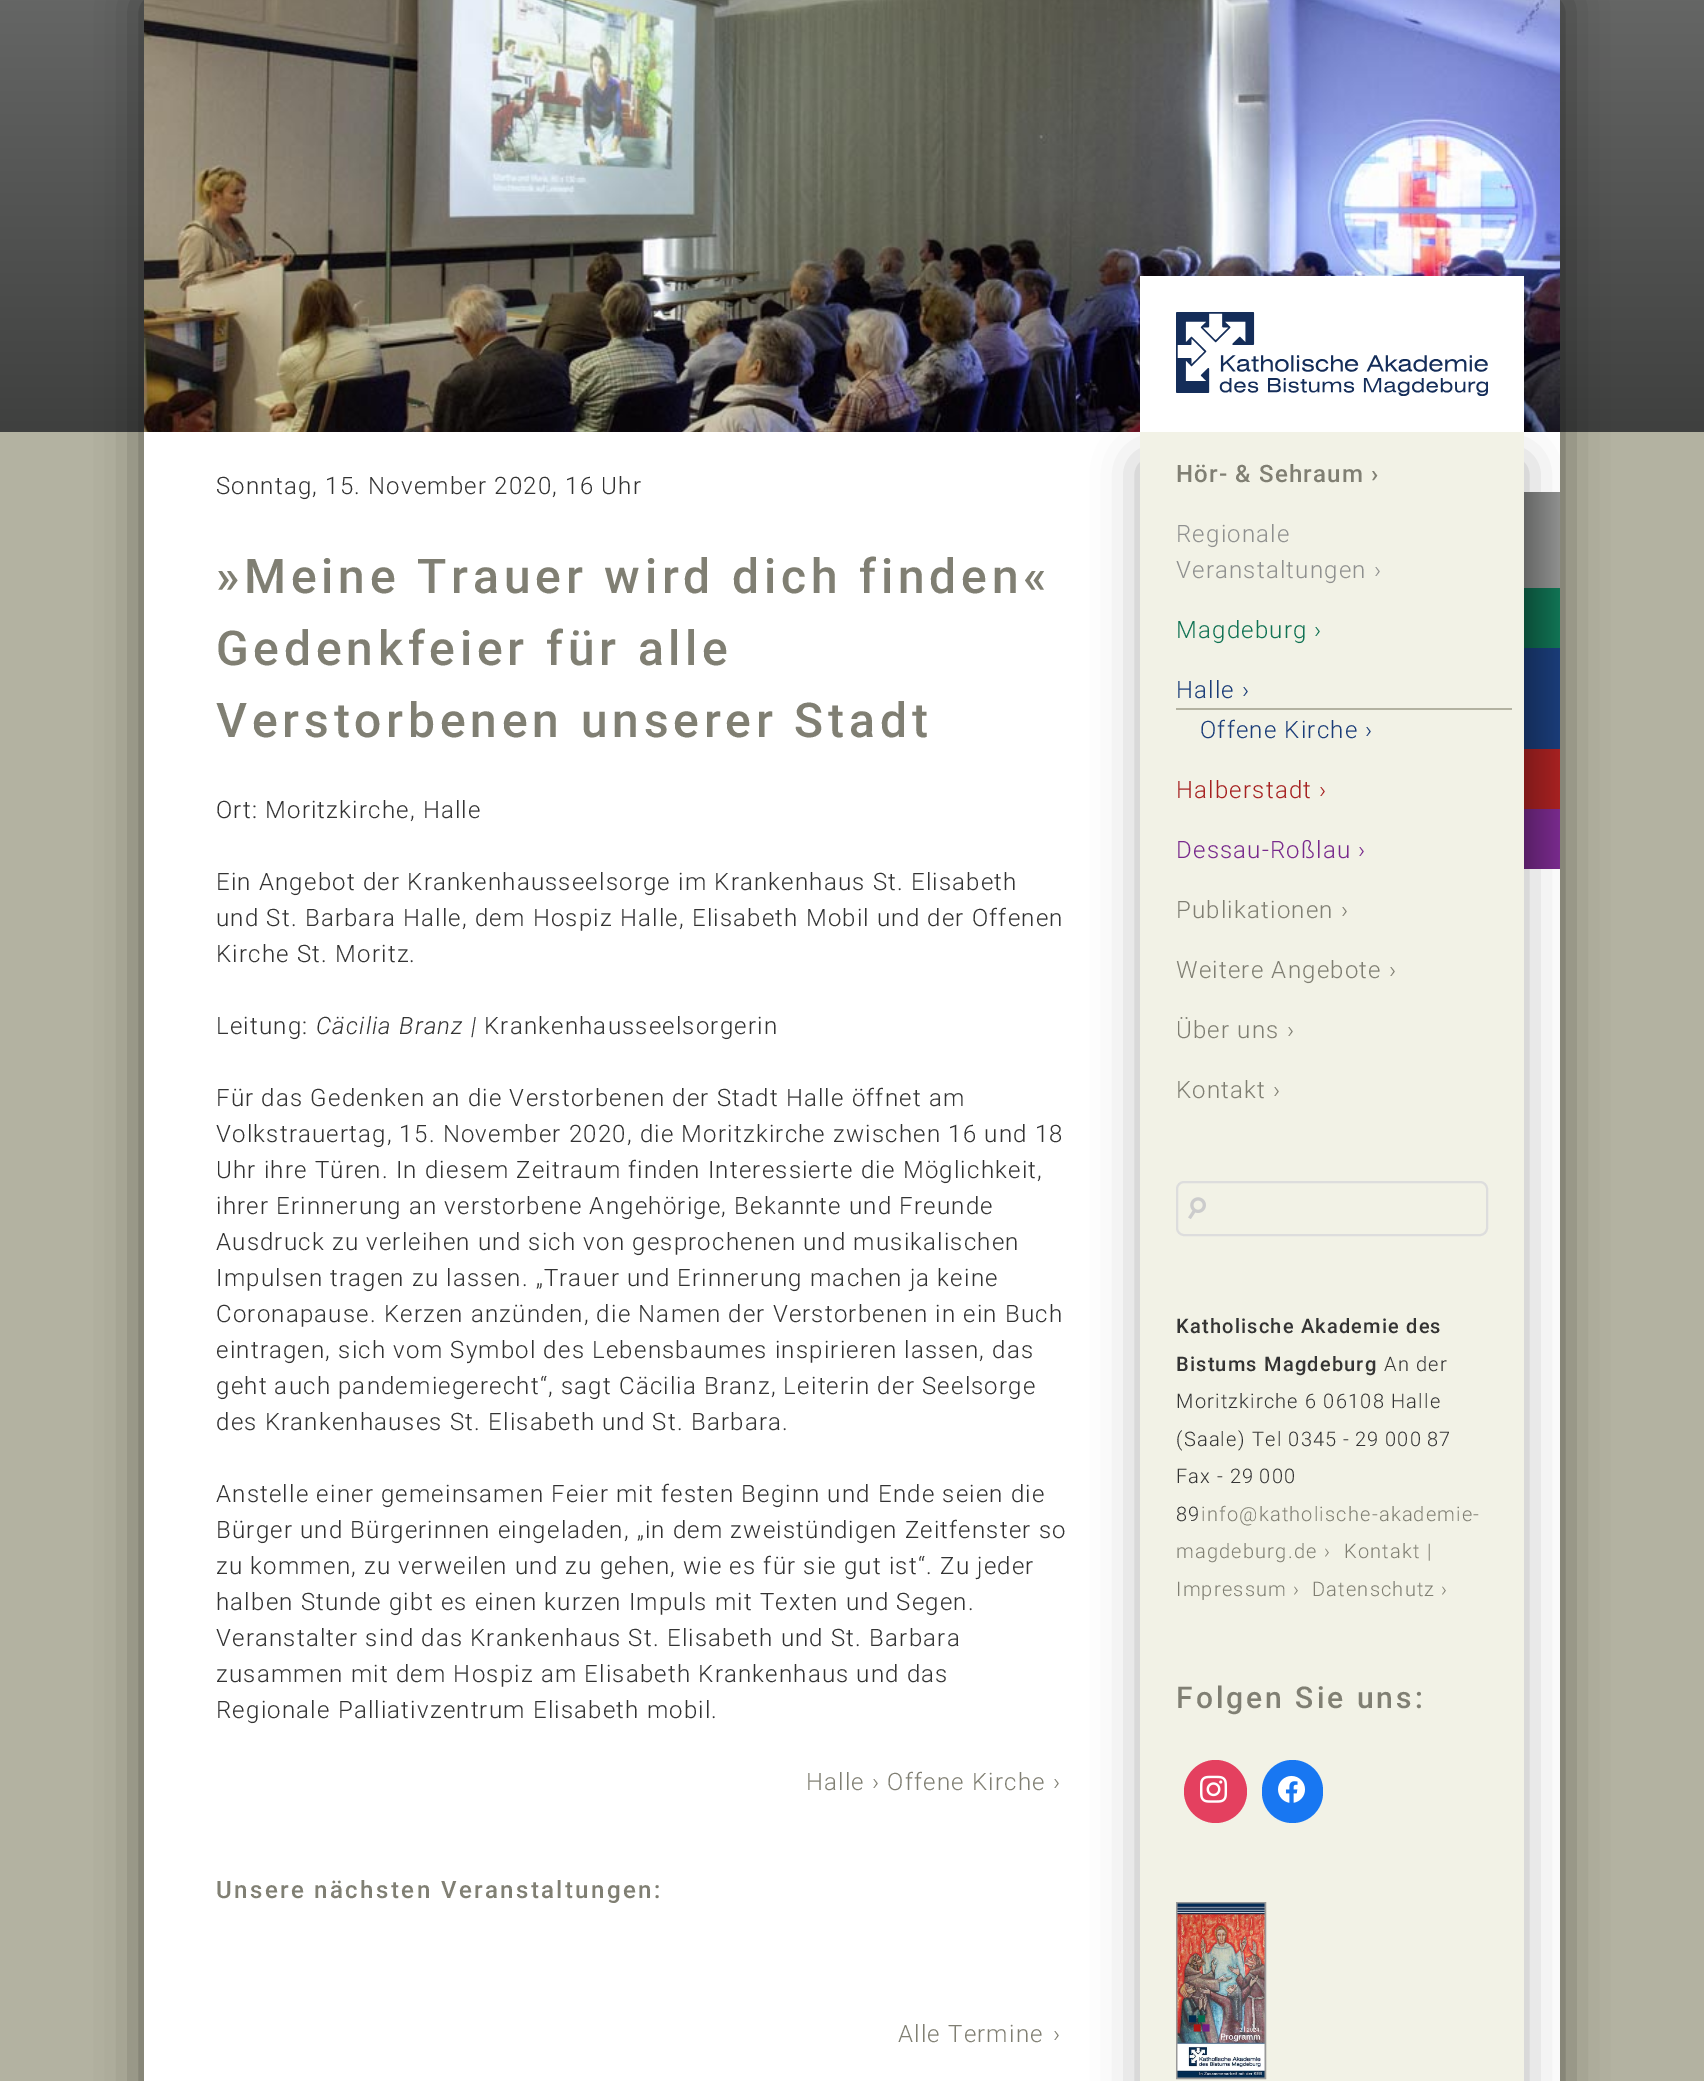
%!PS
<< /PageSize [1704 2081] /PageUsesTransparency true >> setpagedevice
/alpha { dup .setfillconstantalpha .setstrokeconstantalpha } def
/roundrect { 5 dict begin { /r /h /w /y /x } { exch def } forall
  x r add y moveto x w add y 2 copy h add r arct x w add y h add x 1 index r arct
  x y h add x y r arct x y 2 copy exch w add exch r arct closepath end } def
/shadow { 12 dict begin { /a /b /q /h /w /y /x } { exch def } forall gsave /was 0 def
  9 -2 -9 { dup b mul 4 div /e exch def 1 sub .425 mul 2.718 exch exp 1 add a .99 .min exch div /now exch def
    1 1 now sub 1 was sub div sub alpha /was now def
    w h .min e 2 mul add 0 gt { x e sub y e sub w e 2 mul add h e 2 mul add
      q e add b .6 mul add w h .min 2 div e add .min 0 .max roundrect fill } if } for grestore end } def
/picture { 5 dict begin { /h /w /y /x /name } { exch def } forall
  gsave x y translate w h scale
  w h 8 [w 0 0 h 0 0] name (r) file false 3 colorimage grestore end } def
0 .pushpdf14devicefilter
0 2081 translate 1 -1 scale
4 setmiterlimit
0.702 0.698 0.631 setrgbcolor
0 0 1704 2081 rectfill
gsave newpath 0 0 moveto 1704 0 lineto 1704 432 lineto 0 432 lineto closepath clip newpath
<< /ShadingType 2 /ColorSpace /DeviceRGB /Coords [852 432 852 0] /Extend [true true] /Function << /FunctionType 2 /Domain [0 1] /C0 [0.247 0.251 0.247] /C1 [0.396 0.4 0.396] /N 1 >> >> shfill grestore
0 setgray
144 0 1416 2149 0 22.5 0.5 shadow
1 setgray
144 432 1416 1649 rectfill
(img1.rgb) 144 0 1416 432 picture
gsave
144 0 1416 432 rectclip
0 setgray
1140 306 384 156 0 22.5 0.3 shadow
grestore
1140 276 384 156 rectfill
(img2.rgb) 1176 312 312 84 picture
/Roboto-Light [24 0 0 -24 0 0] selectfont
0.2 setgray
216 494 moveto 1.2 0 (Sonntag, 15. November 2020, 16 Uhr) ashow
/Roboto-Medium [48 0 0 -48 0 0] selectfont
0.502 0.498 0.451 setrgbcolor
216 593 moveto 4.8 0 (»Meine Trauer wird dich finden«) ashow
216 665 moveto 4.8 0 (Gedenkfeier für alle) ashow
216 737 moveto 4.8 0 (Verstorbenen unserer Stadt) ashow
/Roboto-Light [24 0 0 -24 0 0] selectfont
0.2 setgray
216 818 moveto 1.2 0 (Ort: Moritzkirche, Halle) ashow
216 890 moveto 1.2 0 (Ein Angebot der Krankenhausseelsorge im Krankenhaus St. Elisabeth) ashow
216 926 moveto 1.2 0 (und St. Barbara Halle, dem Hospiz Halle, Elisabeth Mobil und der Offenen) ashow
216 962 moveto 1.2 0 (Kirche St. Moritz.) ashow
216 1034 moveto 1.2 0 (Leitung:) ashow
/Roboto-LightItalic [24 0 0 -24 0 0] selectfont
316 1034 moveto 1.2 0 (Cäcilia Branz |) ashow
/Roboto-Light [24 0 0 -24 0 0] selectfont
484 1034 moveto 1.2 0 (Krankenhausseelsorgerin) ashow
216 1106 moveto 1.2 0 (Für das Gedenken an die Verstorbenen der Stadt Halle öffnet am) ashow
216 1142 moveto 1.2 0 (Volkstrauertag, 15. November 2020, die Moritzkirche zwischen 16 und 18) ashow
216 1178 moveto 1.2 0 (Uhr ihre Türen. In diesem Zeitraum finden Interessierte die Möglichkeit,) ashow
216 1214 moveto 1.2 0 (ihrer Erinnerung an verstorbene Angehörige, Bekannte und Freunde) ashow
216 1250 moveto 1.2 0 (Ausdruck zu verleihen und sich von gesprochenen und musikalischen) ashow
216 1286 moveto 1.2 0 (Impulsen tragen zu lassen. „Trauer und Erinnerung machen ja keine) ashow
216 1322 moveto 1.2 0 (Coronapause. Kerzen anzünden, die Namen der Verstorbenen in ein Buch) ashow
216 1358 moveto 1.2 0 (eintragen, sich vom Symbol des Lebensbaumes inspirieren lassen, das) ashow
216 1394 moveto 1.2 0 (geht auch pandemiegerecht“, sagt Cäcilia Branz, Leiterin der Seelsorge) ashow
216 1430 moveto 1.2 0 (des Krankenhauses St. Elisabeth und St. Barbara.) ashow
216 1502 moveto 1.2 0 (Anstelle einer gemeinsamen Feier mit festen Beginn und Ende seien die) ashow
216 1538 moveto 1.2 0 (Bürger und Bürgerinnen eingeladen, „in dem zweistündigen Zeitfenster so) ashow
216 1574 moveto 1.2 0 (zu kommen, zu verweilen und zu gehen, wie es für sie gut ist“. Zu jeder) ashow
216 1610 moveto 1.2 0 (halben Stunde gibt es einen kurzen Impuls mit Texten und Segen.) ashow
216 1646 moveto 1.2 0 (Veranstalter sind das Krankenhaus St. Elisabeth und St. Barbara) ashow
216 1682 moveto 1.2 0 (zusammen mit dem Hospiz am Elisabeth Krankenhaus und das) ashow
216 1718 moveto 1.2 0 (Regionale Palliativzentrum Elisabeth mobil.) ashow
0.502 0.498 0.451 setrgbcolor
806 1790 moveto 1.2 0 (Halle › Offene Kirche ›) ashow
/Roboto-Medium [24 0 0 -24 0 0] selectfont
216 1898 moveto 2.4 0 (Unsere nächsten Veranstaltungen:) ashow
/Roboto-Light [24 0 0 -24 0 0] selectfont
898 2042 moveto 1.2 0 (Alle Termine) ashow
1053 2042 moveto 1.2 0 (›) ashow
gsave
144 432 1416 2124 rectclip
0 setgray
1140 462 384 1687 0 22.5 0.3 shadow
grestore
0.949 0.949 0.902 setrgbcolor
1140 432 384 1649 rectfill
/Roboto-Medium [24 0 0 -24 0 0] selectfont
0.502 0.498 0.451 setrgbcolor
1176 482 moveto 1.2 0 (Hör- & Sehraum ›) ashow
/Roboto-Light [24 0 0 -24 0 0] selectfont
0.561 0.565 0.561 setrgbcolor
1176 542 moveto 1.2 0 (Regionale) ashow
gsave newpath 1524 492 moveto 1560 492 lineto 1560 588 lineto 1524 588 lineto closepath clip newpath
<< /ShadingType 2 /ColorSpace /DeviceRGB /Coords [1524 540 1560 540] /Extend [true true] /Function << /FunctionType 2 /Domain [0 1] /C0 [0.396 0.4 0.396] /C1 [0.561 0.565 0.561] /N 1 >> >> shfill grestore
1176 578 moveto 1.2 0 (Veranstaltungen ›) ashow
0.067 0.451 0.329 setrgbcolor
1176 638 moveto 1.2 0 (Magdeburg ›) ashow
gsave newpath 1524 588 moveto 1560 588 lineto 1560 648 lineto 1524 648 lineto closepath clip newpath
<< /ShadingType 2 /ColorSpace /DeviceRGB /Coords [1524 618 1560 618] /Extend [true true] /Function << /FunctionType 2 /Domain [0 1] /C0 [0.043 0.302 0.22] /C1 [0.067 0.451 0.329] /N 1 >> >> shfill grestore
0.102 0.235 0.471 setrgbcolor
1176 698 moveto 1.2 0 (Halle ›) ashow
gsave newpath 1524 648 moveto 1560 648 lineto 1560 708 lineto 1524 708 lineto closepath clip newpath
<< /ShadingType 2 /ColorSpace /DeviceRGB /Coords [1524 678 1560 678] /Extend [true true] /Function << /FunctionType 2 /Domain [0 1] /C0 [0.078 0.176 0.349] /C1 [0.102 0.235 0.471] /N 1 >> >> shfill grestore
0.702 0.698 0.631 setrgbcolor
1176 708 336 2 rectfill
0.102 0.235 0.471 setrgbcolor
1200 738 moveto 1.2 0 (Offene Kirche ›) ashow
gsave newpath 1524 708 moveto 1560 708 lineto 1560 749 lineto 1524 749 lineto closepath clip newpath
<< /ShadingType 2 /ColorSpace /DeviceRGB /Coords [1524 728 1560 728] /Extend [true true] /Function << /FunctionType 2 /Domain [0 1] /C0 [0.078 0.176 0.349] /C1 [0.102 0.235 0.471] /N 1 >> >> shfill grestore
0.651 0.129 0.129 setrgbcolor
1176 798 moveto 1.2 0 (Halberstadt ›) ashow
gsave newpath 1524 749 moveto 1560 749 lineto 1560 809 lineto 1524 809 lineto closepath clip newpath
<< /ShadingType 2 /ColorSpace /DeviceRGB /Coords [1524 779 1560 779] /Extend [true true] /Function << /FunctionType 2 /Domain [0 1] /C0 [0.502 0.102 0.102] /C1 [0.651 0.129 0.129] /N 1 >> >> shfill grestore
0.471 0.165 0.549 setrgbcolor
1176 858 moveto 1.2 0 (Dessau-Roßlau ›) ashow
gsave newpath 1524 809 moveto 1560 809 lineto 1560 869 lineto 1524 869 lineto closepath clip newpath
<< /ShadingType 2 /ColorSpace /DeviceRGB /Coords [1524 839 1560 839] /Extend [true true] /Function << /FunctionType 2 /Domain [0 1] /C0 [0.345 0.122 0.4] /C1 [0.471 0.165 0.549] /N 1 >> >> shfill grestore
0.502 0.498 0.451 setrgbcolor
1176 918 moveto 1.2 0 (Publikationen ›) ashow
1176 978 moveto 1.2 0 (Weitere Angebote ›) ashow
1176 1038 moveto 1.2 0 (Über uns ›) ashow
1176 1098 moveto 1.2 0 (Kontakt ›) ashow
(img3.rgb) 1188 1197 18 22 picture
0.867 setgray
2 setlinewidth
1177 1182 310 53 7 roundrect stroke
/Roboto-Medium [20 0 0 -20 0 0] selectfont
0.2 setgray
1176 1333 moveto 1.2 0 (Katholische Akademie des) ashow
1176 1371 moveto 1.2 0 (Bistums Magdeburg) ashow
/Roboto-Light [20 0 0 -20 0 0] selectfont
1384 1371 moveto 1.2 0 (An der) ashow
1176 1408 moveto 1.2 0 (Moritzkirche 6 06108 Halle) ashow
1176 1446 moveto 1.2 0 (\(Saale\)) ashow
1252 1446 moveto 1.2 0 (Tel 0345 - 29 000 87) ashow
1176 1483 moveto 1.2 0 (Fax - 29 000) ashow
1176 1521 moveto 1.2 0 (89) ashow
0.502 0.498 0.451 setrgbcolor
1201 1521 moveto 1.2 0 (info@katholische-akademie-) ashow
1176 1558 moveto 1.2 0 (magdeburg.de ›) ashow
1344 1558 moveto 1.2 0 (Kontakt |) ashow
1176 1596 moveto 1.2 0 (Impressum ›) ashow
1312 1596 moveto 1.2 0 (Datenschutz ›) ashow
/Roboto-Medium [30 0 0 -30 0 0] selectfont
1176 1708 moveto 3 0 (Folgen Sie uns:) ashow
0.894 0.251 0.373 setrgbcolor
newpath 1215.5 1791.5 31.5 0 360 arc closepath fill
(img4.rgb) 1200 1775 28 28 picture
0.094 0.467 0.949 setrgbcolor
1262 1760 61 63 30.5 roundrect fill
(img5.rgb) 1278 1775 27 28 picture
0.6 setgray
1177 1903 88 175 rectstroke
(img6.rgb) 1177 1903 88 175 picture
.poppdf14devicefilter showpage
